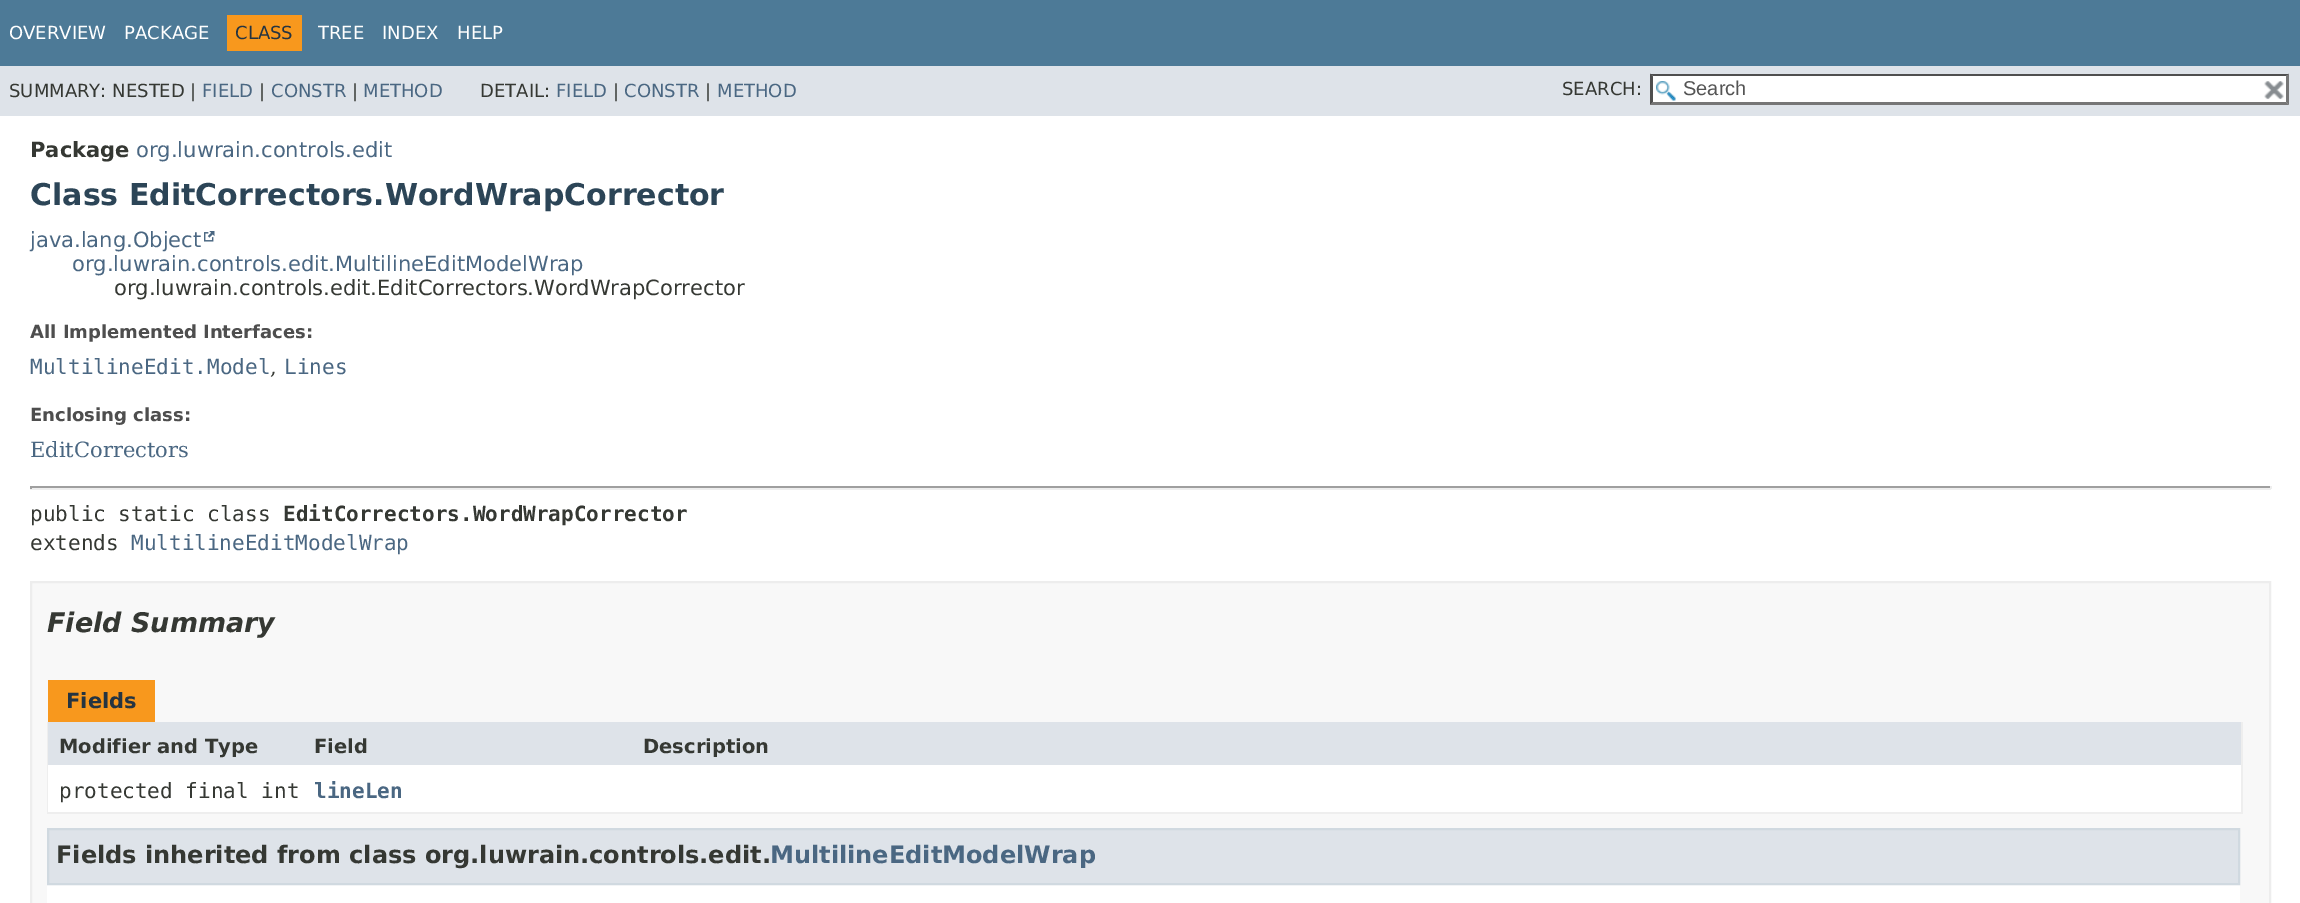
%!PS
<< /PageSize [2300 903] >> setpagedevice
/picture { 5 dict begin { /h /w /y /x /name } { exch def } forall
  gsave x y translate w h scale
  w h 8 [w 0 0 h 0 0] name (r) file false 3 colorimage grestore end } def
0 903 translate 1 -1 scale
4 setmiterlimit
1 setgray
0 0 2300 903 rectfill
0.302 0.478 0.592 setrgbcolor
0 0 2300 66 rectfill
/DejaVuSans-Regular [18 0 0 -18 0 0] selectfont
1 setgray
9 39 moveto (OVERVIEW) show
124 39 moveto (PACKAGE) show
0.973 0.596 0.114 setrgbcolor
227 15 75 36 rectfill
0.145 0.204 0.255 setrgbcolor
235 39 moveto (CLASS) show
1 setgray
318 39 moveto (TREE) show
382 39 moveto (INDEX) show
457 39 moveto (HELP) show
0.871 0.89 0.914 setrgbcolor
0 66 2300 50 rectfill
0.208 0.22 0.2 setrgbcolor
9 97 moveto (SUMMARY: NESTED |) show
0.29 0.404 0.51 setrgbcolor
202 97 moveto (FIELD) show
0.208 0.22 0.2 setrgbcolor
259 97 moveto (|) show
0.29 0.404 0.51 setrgbcolor
271 97 moveto (CONSTR) show
0.208 0.22 0.2 setrgbcolor
352 97 moveto (|) show
0.29 0.404 0.51 setrgbcolor
363 97 moveto (METHOD) show
0.208 0.22 0.2 setrgbcolor
480 97 moveto (DETAIL:) show
0.29 0.404 0.51 setrgbcolor
556 97 moveto (FIELD) show
0.208 0.22 0.2 setrgbcolor
613 97 moveto (|) show
0.29 0.404 0.51 setrgbcolor
624 97 moveto (CONSTR) show
0.208 0.22 0.2 setrgbcolor
705 97 moveto (|) show
0.29 0.404 0.51 setrgbcolor
717 97 moveto (METHOD) show
0.208 0.22 0.2 setrgbcolor
1562 95 moveto (SEARCH:) show
1 setgray
1650 74 639 31 rectfill
(img1.rgb) 1656 81 20 20 picture
0.31 setgray
newpath 1650 74 moveto 2289 74 lineto 2286 76 lineto 1653 76 lineto closepath fill
0.463 setgray
newpath 2289 73.5 moveto 2289 105 lineto 2286 102 lineto 2286 76.5 lineto closepath fill
newpath 2289 105 moveto 1650 105 lineto 1653 102 lineto 2286 102 lineto closepath fill
0.31 setgray
newpath 1650 105 moveto 1650 73.5 lineto 1653 76.5 lineto 1653 102 lineto closepath fill
/LiberationSans-Regular [20 0 0 -20 0 0] selectfont
0.329 setgray
1683 95 moveto (Search) show
(img2.rgb) 2264 81 20 19 picture
/DejaVuSans-Bold [21 0 0 -21 0 0] selectfont
0.208 0.22 0.2 setrgbcolor
30 157 moveto (Package) show
/DejaVuSans-Regular [21 0 0 -21 0 0] selectfont
0.29 0.404 0.51 setrgbcolor
136 157 moveto (org.luwrain.controls.edit) show
/DejaVuSans-Bold [30 0 0 -30 0 0] selectfont
0.173 0.271 0.341 setrgbcolor
30 205 moveto (Class EditCorrectors.WordWrapCorrector) show
/DejaVuSans-Regular [21 0 0 -21 0 0] selectfont
0.29 0.404 0.51 setrgbcolor
30 247 moveto (java.lang.Object) show
(img3.rgb) 204 231 11 11 picture
72 271 moveto (org.luwrain.controls.edit.MultilineEditModelWrap) show
0.208 0.22 0.2 setrgbcolor
114 295 moveto (org.luwrain.controls.edit.EditCorrectors.WordWrapCorrector) show
/DejaVuSans-Bold [18 0 0 -18 0 0] selectfont
0.306 setgray
30 338 moveto (All Implemented Interfaces:) show
/DejaVuSansMono-Regular [21 0 0 -21 0 0] selectfont
0.29 0.404 0.51 setrgbcolor
30 374 moveto (MultilineEdit.Model) show
/DejaVuSerif-Regular [21 0 0 -21 0 0] selectfont
0.208 0.22 0.2 setrgbcolor
270 374 moveto (,) show
/DejaVuSansMono-Regular [21 0 0 -21 0 0] selectfont
0.29 0.404 0.51 setrgbcolor
284 374 moveto (Lines) show
/DejaVuSans-Bold [18 0 0 -18 0 0] selectfont
0.306 setgray
30 421 moveto (Enclosing class:) show
/DejaVuSerif-Regular [21 0 0 -21 0 0] selectfont
0.29 0.404 0.51 setrgbcolor
30 457 moveto (EditCorrectors) show
0.624 setgray
30 486 2241 2 rectfill
0.933 setgray
2270 486 2 3 rectfill
30 488 2241 2 rectfill
0.624 setgray
30 486 2 3 rectfill
/DejaVuSansMono-Regular [21 0 0 -21 0 0] selectfont
0.208 0.22 0.2 setrgbcolor
30 521 moveto (public static class) show
/DejaVuSansMono-Bold [21 0 0 -21 0 0] selectfont
283 521 moveto (EditCorrectors.WordWrapCorrector) show
/DejaVuSansMono-Regular [21 0 0 -21 0 0] selectfont
30 550 moveto (extends) show
0.29 0.404 0.51 setrgbcolor
131 550 moveto (MultilineEditModelWrap) show
0.973 setgray
newpath 31 582 moveto 2270 582 lineto 2270 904 lineto 31 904 lineto closepath gsave fill grestore
0.929 setgray
2 setlinewidth
stroke
/DejaVuSans-BoldItalic [27 0 0 -27 0 0] selectfont
0.208 0.22 0.2 setrgbcolor
47 632 moveto (Field Summary) show
0.973 0.596 0.114 setrgbcolor
48 680 107 42 rectfill
/DejaVuSans-Bold [21 0 0 -21 0 0] selectfont
0.145 0.204 0.255 setrgbcolor
66 708 moveto (Fields) show
0.933 setgray
2241 722 2 91 rectfill
47 812 2196 2 rectfill
47 722 2 91 rectfill
0.871 0.89 0.914 setrgbcolor
48 722 584 43 rectfill
/DejaVuSans-Bold [19.5 0 0 -19.5 0 0] selectfont
0.208 0.22 0.2 setrgbcolor
59 753 moveto (Modifier and Type) show
314 753 moveto (Field) show
0.871 0.89 0.914 setrgbcolor
632 722 1609 43 rectfill
0.208 0.22 0.2 setrgbcolor
643 753 moveto (Description) show
1 setgray
48 765 584 47 rectfill
/DejaVuSansMono-Regular [21 0 0 -21 0 0] selectfont
0.208 0.22 0.2 setrgbcolor
59 798 moveto (protected final int) show
/DejaVuSansMono-Bold [21 0 0 -21 0 0] selectfont
0.29 0.404 0.51 setrgbcolor
314 798 moveto (lineLen) show
1 setgray
632 765 1609 47 rectfill
47 885 2193 18 rectfill
0.871 0.89 0.914 setrgbcolor
newpath 48 829 moveto 2239 829 lineto 2239 884 lineto 48 884 lineto closepath gsave fill grestore
0.816 0.851 0.878 setrgbcolor
stroke
/DejaVuSans-Bold [24 0 0 -24 0 0] selectfont
0.208 0.22 0.2 setrgbcolor
56 863 moveto (Fields inherited from class org.luwrain.controls.edit.) show
0.29 0.404 0.51 setrgbcolor
770 863 moveto (MultilineEditModelWrap) show
showpage
